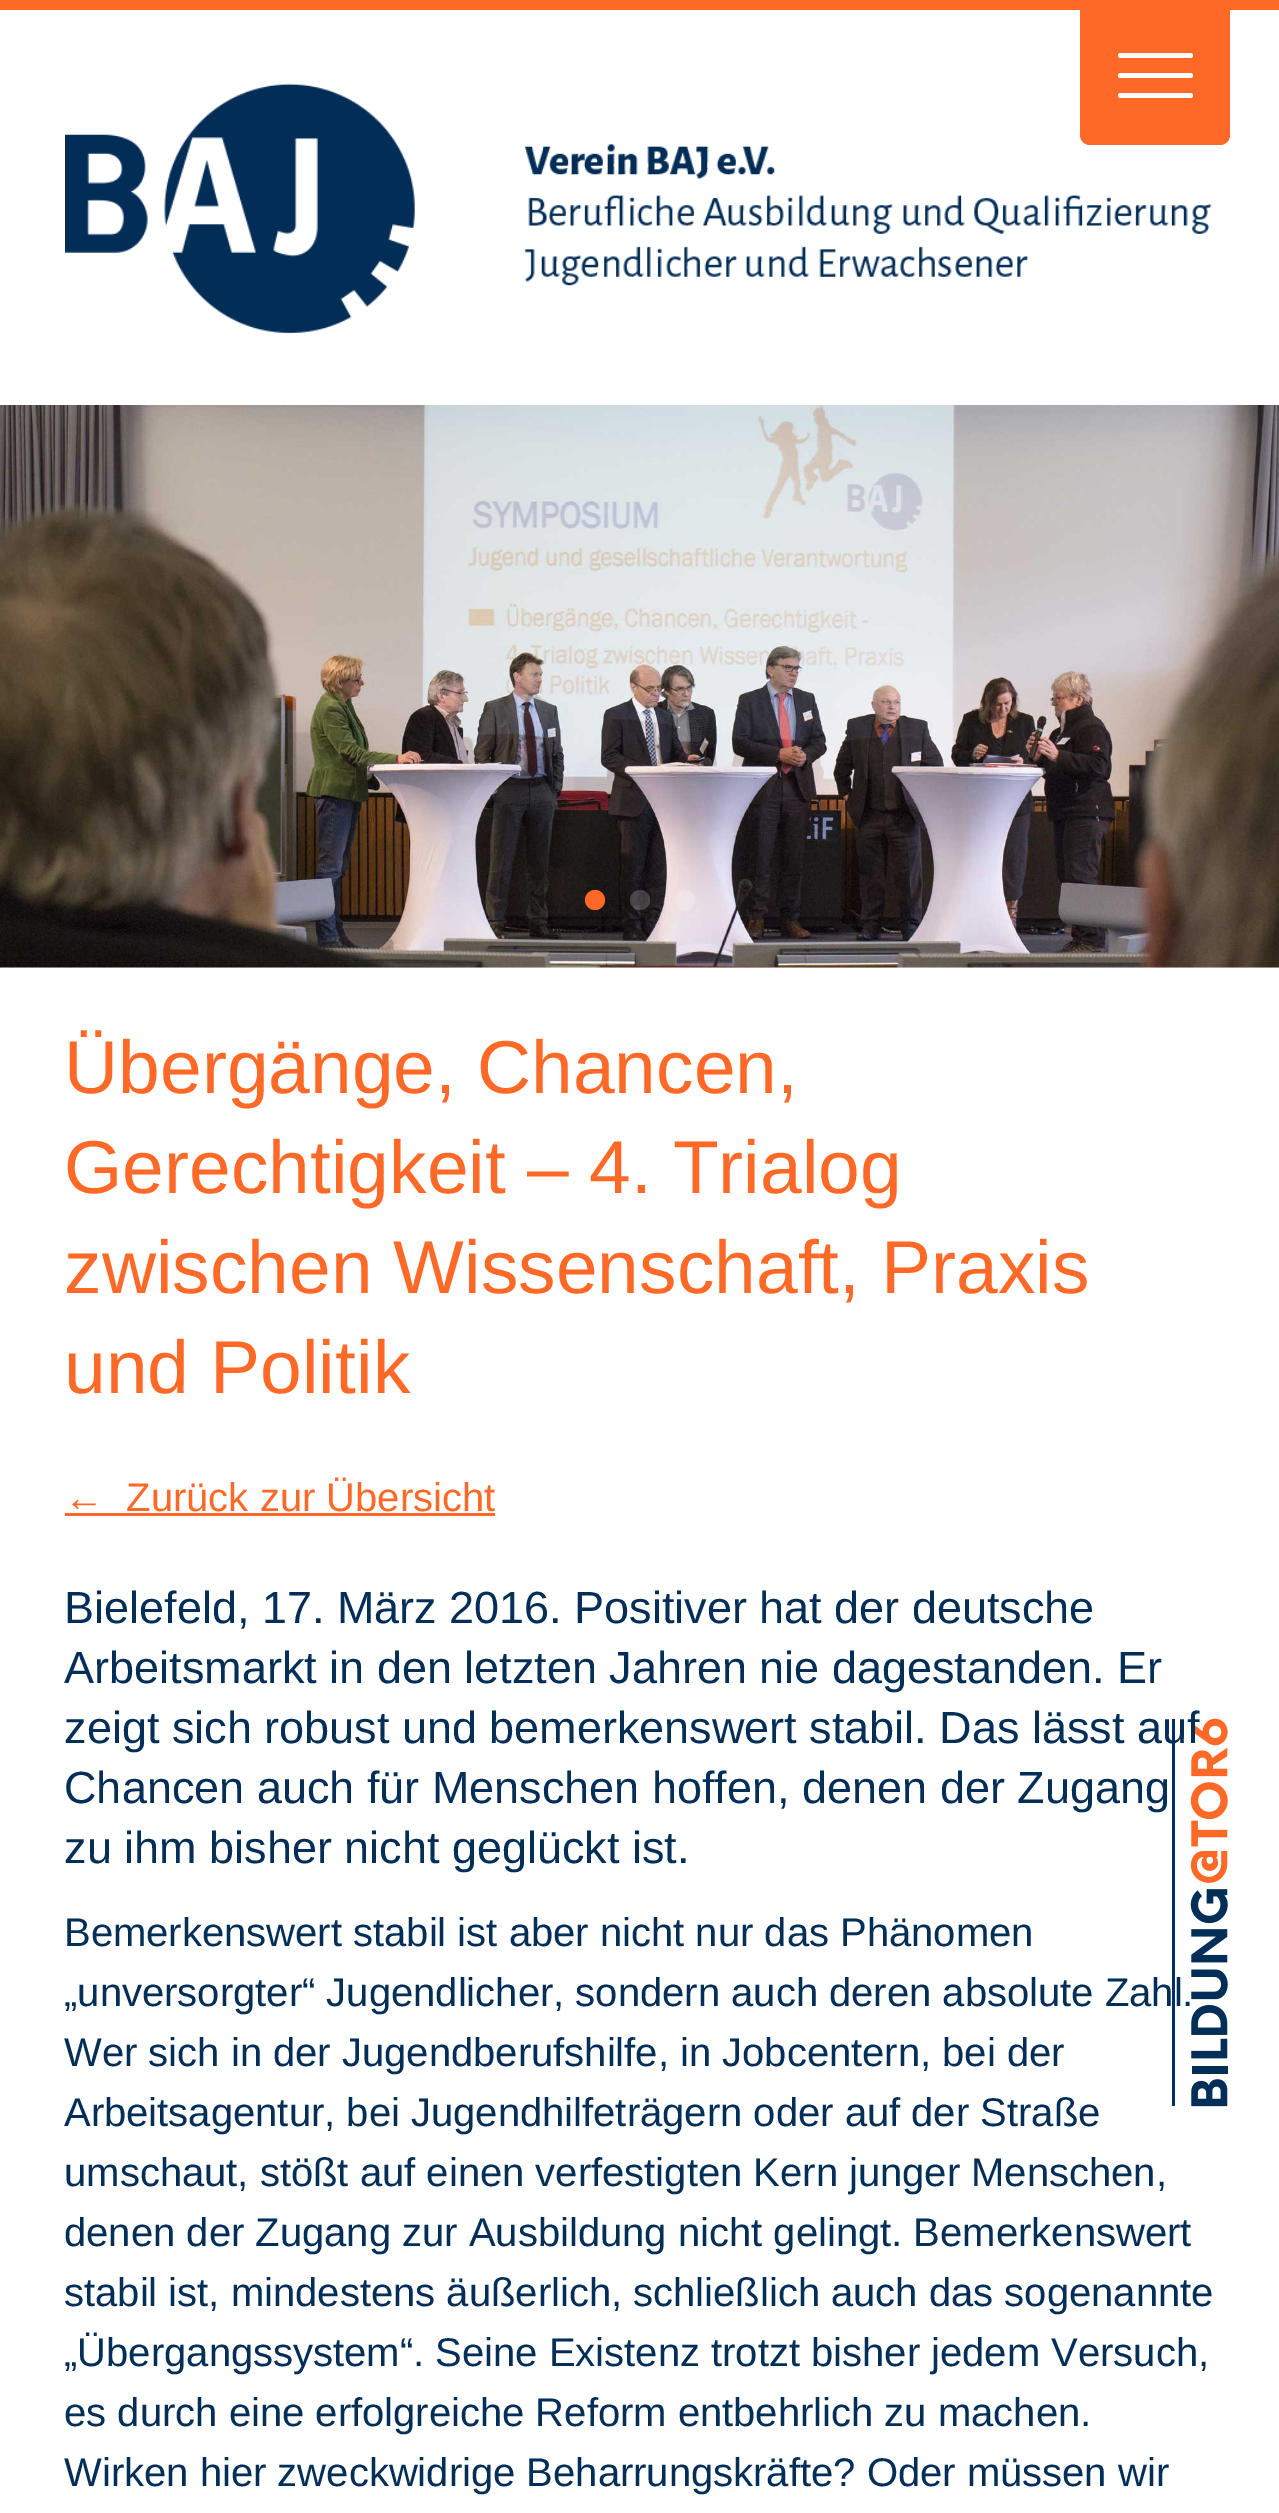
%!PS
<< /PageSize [1279 2513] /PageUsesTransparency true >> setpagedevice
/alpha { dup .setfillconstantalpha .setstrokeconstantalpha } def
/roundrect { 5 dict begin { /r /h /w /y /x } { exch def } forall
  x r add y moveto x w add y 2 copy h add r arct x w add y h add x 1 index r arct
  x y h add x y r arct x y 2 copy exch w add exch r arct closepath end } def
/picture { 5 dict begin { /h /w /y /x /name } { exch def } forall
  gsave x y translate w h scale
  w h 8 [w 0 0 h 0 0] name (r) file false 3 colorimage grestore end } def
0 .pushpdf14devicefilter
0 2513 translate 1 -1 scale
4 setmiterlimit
1 setgray
0 0 1279 2513 rectfill
1 0.412 0.157 setrgbcolor
0 0 1279 10 rectfill
(img1.rgb) 65 83 1147 251 picture
newpath 1080 10 moveto 1230 10 lineto 1230 135 lineto 1230 140.5 1225.5 145 1220 145 curveto 1090 145 lineto 1084.5 145 1080 140.5 1080 135 curveto closepath fill
1 setgray
1118 53 75 5 2.5 roundrect fill
1118 73 75 5 2.5 roundrect fill
1118 93 75 5 2.5 roundrect fill
0.953 setgray
0 967 1279 1 rectfill
(img2.rgb) 0 405 1279 563 picture
1 0.412 0.157 setrgbcolor
newpath 595 900 10 0 360 arc closepath fill
0.2 alpha
1 setgray
newpath 640 900 10 0 360 arc closepath fill
newpath 685 900 10 0 360 arc closepath fill
/LiberationSans-Regular [75 0 0 -75 0 0] selectfont
1 alpha
1 0.412 0.157 setrgbcolor
64 1093 moveto (Übergänge, Chancen,) show
64 1193 moveto (Gerechtigkeit – 4. Trialog) show
64 1293 moveto (zwischen Wissenschaft, Praxis) show
64 1393 moveto (und Politik) show
/LiberationSans-Regular [40 0 0 -40 0 0] selectfont
64 1511 moveto (←  Zurück zur Übersicht) show
65 1513 430 3 rectfill
/LiberationSans-Regular [45 0 0 -45 0 0] selectfont
0.008 0.18 0.341 setrgbcolor
64 1623 moveto (Bielefeld, 17. März 2016. Positiver hat der deutsche) show
64 1683 moveto (Arbeitsmarkt in den letzten Jahren nie dagestanden. Er) show
(img3.rgb) 1172 1718 56 389 picture
64 1743 moveto (zeigt sich robust und bemerkenswert stabil. Das lässt auf) show
64 1803 moveto (Chancen auch für Menschen hoffen, denen der Zugang) show
64 1863 moveto (zu ihm bisher nicht geglückt ist.) show
/LiberationSans-Regular [40 0 0 -40 0 0] selectfont
64 1946 moveto (Bemerkenswert stabil ist aber nicht nur das Phänomen) show
64 2006 moveto („unversorgter“ Jugendlicher, sondern auch deren absolute Zahl.) show
64 2066 moveto (Wer sich in der Jugendberufshilfe, in Jobcentern, bei der) show
64 2126 moveto (Arbeitsagentur, bei Jugendhilfeträgern oder auf der Straße) show
64 2186 moveto (umschaut, stößt auf einen verfestigten Kern junger Menschen,) show
64 2246 moveto (denen der Zugang zur Ausbildung nicht gelingt. Bemerkenswert) show
64 2306 moveto (stabil ist, mindestens äußerlich, schließlich auch das sogenannte) show
64 2366 moveto („Übergangssystem“. Seine Existenz trotzt bisher jedem Versuch,) show
64 2426 moveto (es durch eine erfolgreiche Reform entbehrlich zu machen.) show
64 2486 moveto (Wirken hier zweckwidrige Beharrungskräfte? Oder müssen wir) show
.poppdf14devicefilter showpage
